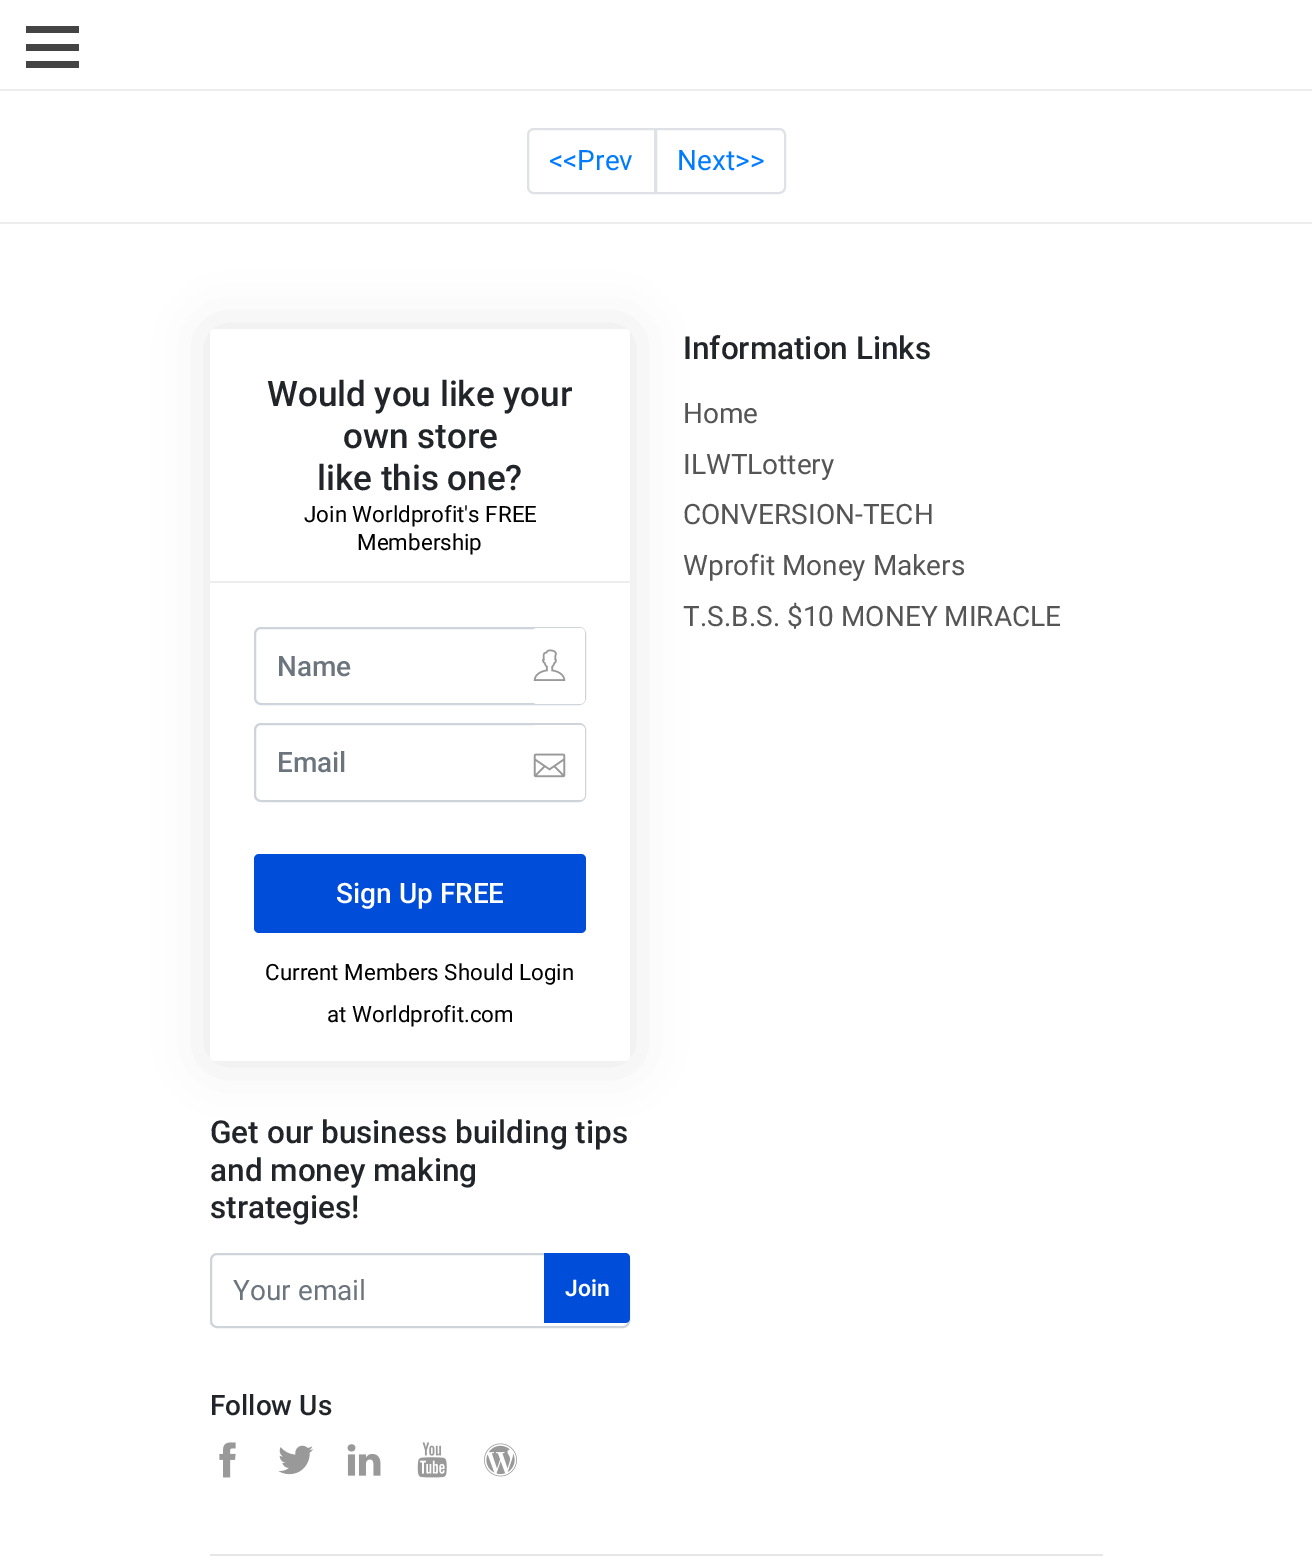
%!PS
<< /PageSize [1312 1561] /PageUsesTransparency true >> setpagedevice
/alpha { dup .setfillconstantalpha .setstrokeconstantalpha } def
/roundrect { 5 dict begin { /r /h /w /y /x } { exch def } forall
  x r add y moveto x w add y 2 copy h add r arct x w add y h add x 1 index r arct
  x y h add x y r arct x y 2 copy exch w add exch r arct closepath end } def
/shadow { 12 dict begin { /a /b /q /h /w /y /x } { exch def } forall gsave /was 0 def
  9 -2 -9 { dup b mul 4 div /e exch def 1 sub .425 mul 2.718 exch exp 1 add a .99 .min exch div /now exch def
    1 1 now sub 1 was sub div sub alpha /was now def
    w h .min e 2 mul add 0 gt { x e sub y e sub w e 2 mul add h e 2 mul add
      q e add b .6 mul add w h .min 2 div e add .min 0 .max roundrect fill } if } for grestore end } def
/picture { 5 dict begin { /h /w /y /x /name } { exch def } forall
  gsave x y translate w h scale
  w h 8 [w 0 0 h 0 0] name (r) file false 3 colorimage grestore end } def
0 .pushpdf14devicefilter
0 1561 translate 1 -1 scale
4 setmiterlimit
1 setgray
0 0 1312 1561 rectfill
0.929 setgray
0 89 1312 2 rectfill
0.267 setgray
26 44 53 7 rectfill
26 26 53 7 rectfill
26 61 53 7 rectfill
0.871 0.886 0.902 setrgbcolor
2 setlinewidth
newpath 534 129 moveto 655 129 lineto 655 193 lineto 534 193 lineto 530.5 193 528 190.5 528 187 curveto 528 135 lineto 528 131.5 530.5 129 534 129 curveto closepath stroke
/Roboto-Regular [28 0 0 -28 0 0] selectfont
0 0.482 1 setrgbcolor
549 170 moveto (<<Prev) show
1 setgray
newpath 656 129 moveto 779 129 lineto 782.5 129 785 131.5 785 135 curveto 785 187 lineto 785 190.5 782.5 193 779 193 curveto 656 193 lineto closepath gsave fill grestore
0.871 0.886 0.902 setrgbcolor
stroke
0 0.482 1 setrgbcolor
677 170 moveto (Next>>) show
0.929 setgray
0 222 1312 2 rectfill
0 setgray
210 329 420 732 5 26 0.1 shadow
1 setgray
210 329 420 732 5 roundrect fill
0.929 setgray
210 581 420 2 rectfill
/Roboto-Medium [35 0 0 -35 0 0] selectfont
0.129 0.145 0.161 setrgbcolor
267 406 moveto (Would you like your) show
343 448 moveto (own store) show
317 490 moveto (like this one?) show
/Roboto-Regular [22.4 0 0 -22.4 0 0] selectfont
0 setgray
304 522 moveto (Join Worldprofit's FREE) show
357 550 moveto (Membership) show
0.808 0.831 0.855 setrgbcolor
255 628 330 76 6 roundrect stroke
/Roboto-Medium [28 0 0 -28 0 0] selectfont
0.424 0.459 0.49 setrgbcolor
277 676 moveto (Name) show
1 setgray
532 628 53 76 5 roundrect fill
(img1.rgb) 533 649 33 32 picture
0.808 0.831 0.855 setrgbcolor
255 724 330 77 6 roundrect stroke
0.424 0.459 0.49 setrgbcolor
277 772 moveto (Email) show
1 setgray
532 725 53 75 5 roundrect fill
(img2.rgb) 533 753 33 25 picture
0 0.302 0.855 setrgbcolor
254 854 332 79 5 roundrect fill
1 setgray
336 903 moveto (Sign Up FREE) show
/Roboto-Regular [22.4 0 0 -22.4 0 0] selectfont
0 setgray
265 980 moveto (Current Members Should Login) show
327 1022 moveto (at Worldprofit.com) show
/Roboto-Medium [31.5 0 0 -31.5 0 0] selectfont
0.129 0.145 0.161 setrgbcolor
683 359 moveto (Information Links) show
/Roboto-Regular [28 0 0 -28 0 0] selectfont
0.333 setgray
683 423 moveto (Home) show
683 474 moveto (ILWTLottery) show
683 524 moveto (CONVERSION-TECH) show
683 575 moveto (Wprofit Money Makers) show
683 626 moveto (T.S.B.S. $10 MONEY MIRACLE) show
/Roboto-Medium [31.5 0 0 -31.5 0 0] selectfont
0.129 0.145 0.161 setrgbcolor
210 1143 moveto (Get our business building tips) show
210 1181 moveto (and money making) show
210 1218 moveto (strategies!) show
0.808 0.831 0.855 setrgbcolor
211 1254 418 73 6 roundrect stroke
/Roboto-Regular [28 0 0 -28 0 0] selectfont
0.424 0.459 0.49 setrgbcolor
233 1300 moveto (Your email) show
0 0.302 0.855 setrgbcolor
newpath 544 1253 moveto 625 1253 lineto 628 1253 630 1255 630 1258 curveto 630 1318 lineto 630 1321 628 1323 625 1323 curveto 544 1323 lineto closepath fill
/Roboto-SemiBold [23 0 0 -23 0 0] selectfont
1 setgray
565 1296 moveto (Join) show
/Roboto-Medium [28 0 0 -28 0 0] selectfont
0.129 0.145 0.161 setrgbcolor
210 1415 moveto (Follow Us) show
(img3.rgb) 219 1442 17 36 picture
(img4.rgb) 278 1445 35 30 picture
(img5.rgb) 347 1444 34 32 picture
(img6.rgb) 417 1442 30 36 picture
(img7.rgb) 484 1443 33 34 picture
0.902 setgray
210 1554 893 2 rectfill
.poppdf14devicefilter showpage
